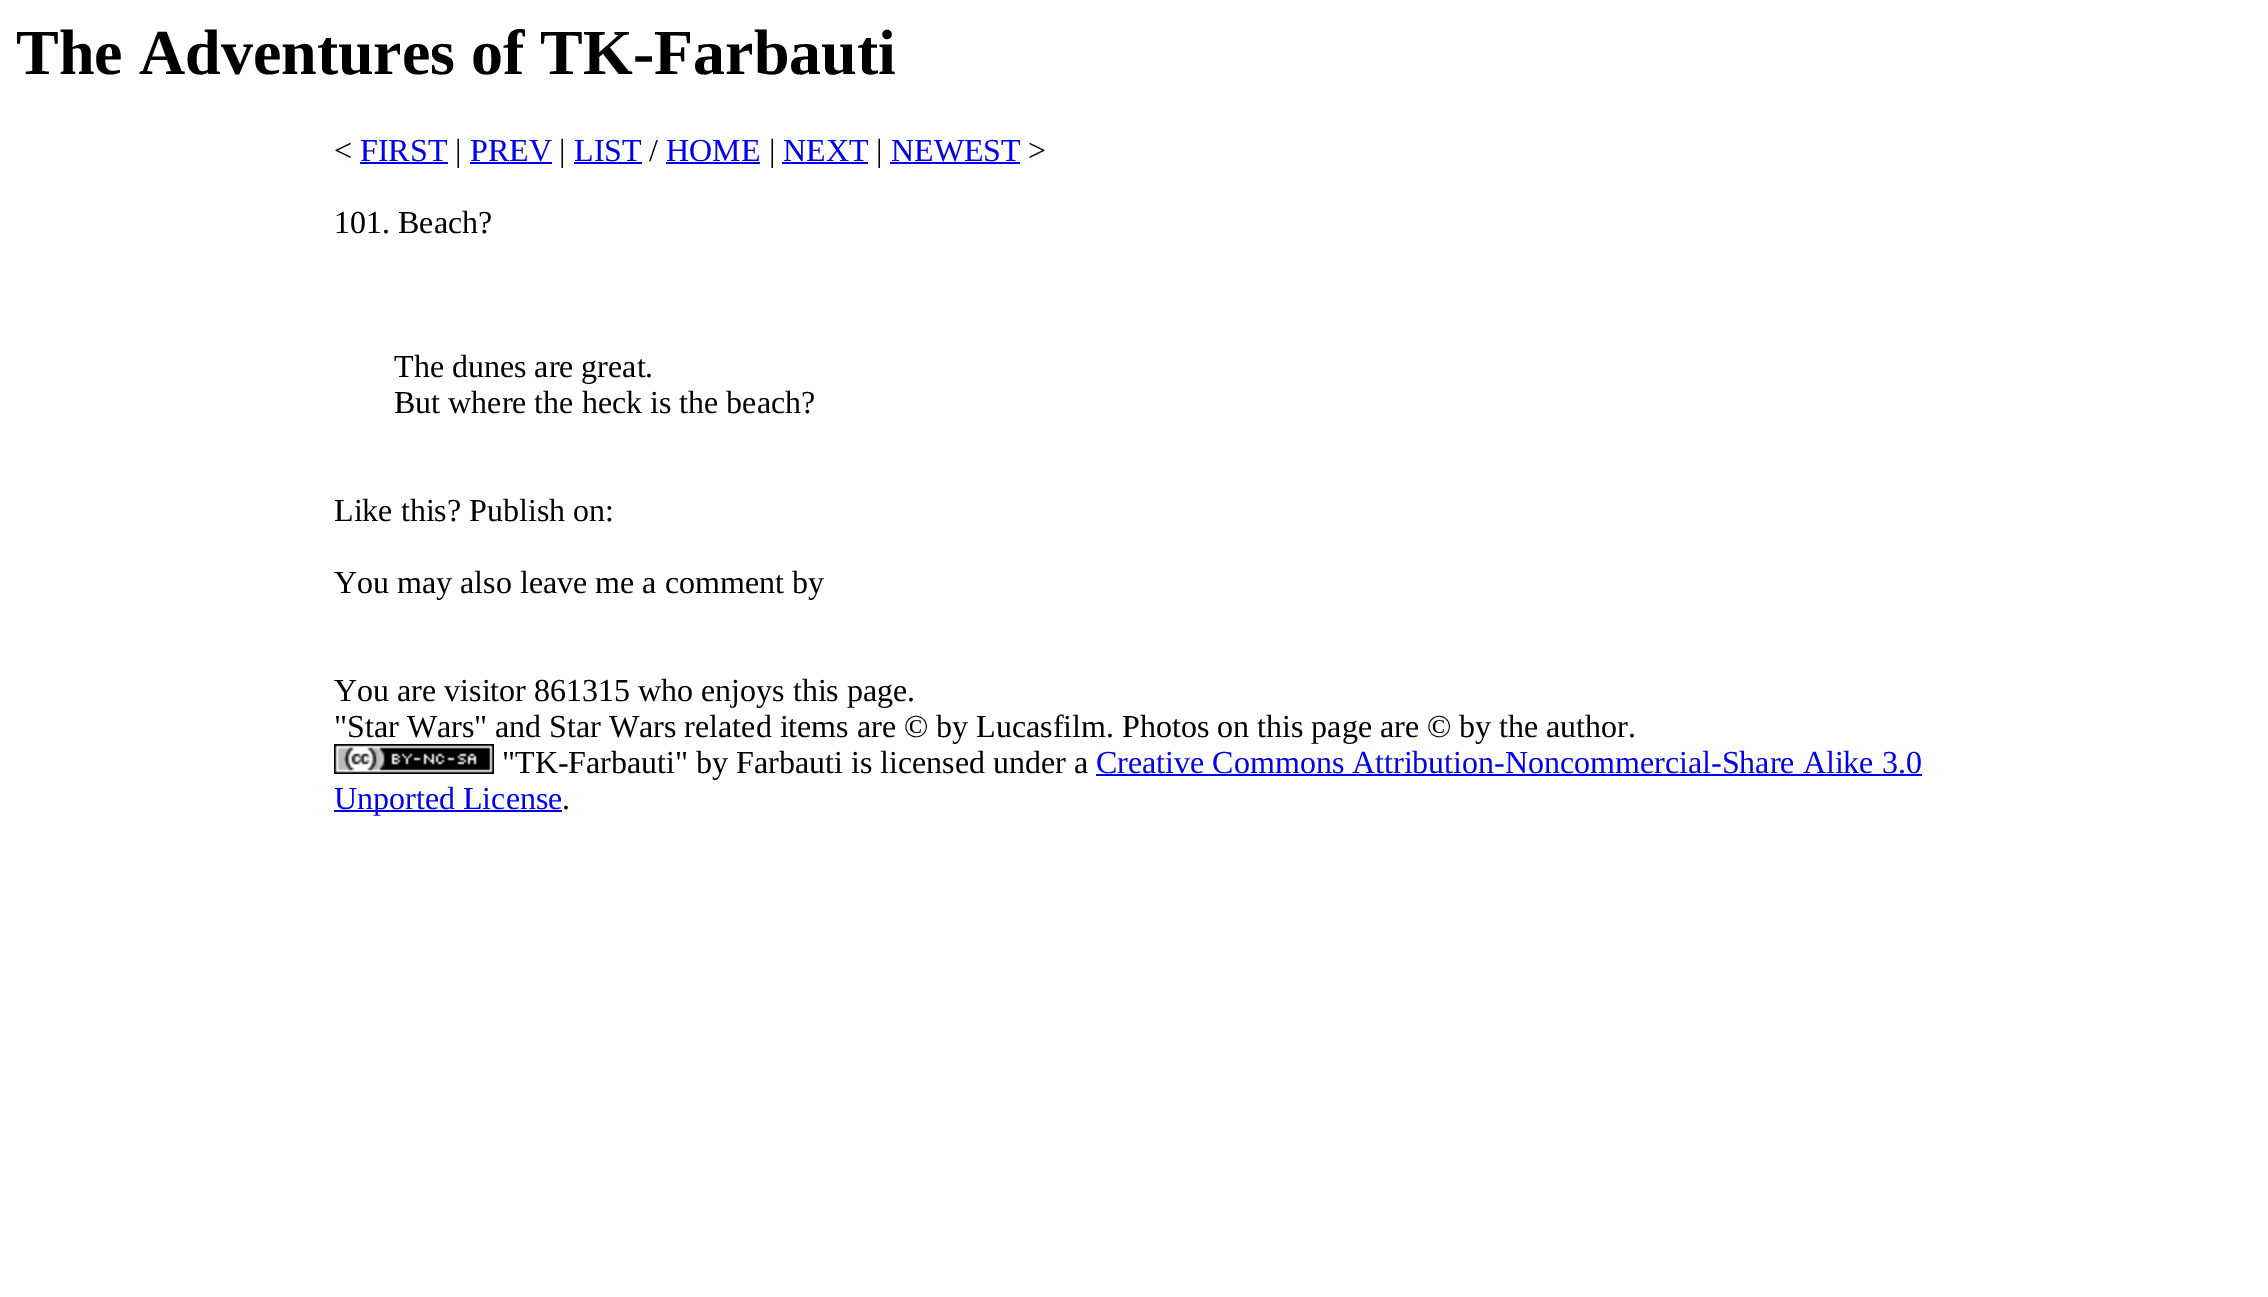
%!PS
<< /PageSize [2268 1297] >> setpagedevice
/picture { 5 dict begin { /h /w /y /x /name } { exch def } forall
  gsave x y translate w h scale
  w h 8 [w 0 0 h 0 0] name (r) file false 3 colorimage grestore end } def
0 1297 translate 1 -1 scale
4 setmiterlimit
1 setgray
0 0 2268 1297 rectfill
/LiberationSerif-Bold [64 0 0 -64 0 0] selectfont
0 setgray
16 74 moveto (The Adventures of TK-Farbauti) show
/LiberationSerif-Regular [32 0 0 -32 0 0] selectfont
334 161 moveto (<) show
0 0 0.933 setrgbcolor
360 161 moveto (FIRST) show
360 162 88 2 rectfill
0 setgray
455 161 moveto (|) show
0 0 0.933 setrgbcolor
470 161 moveto (PREV) show
470 162 82 2 rectfill
0 setgray
559 161 moveto (|) show
0 0 0.933 setrgbcolor
574 161 moveto (LIST) show
574 162 68 2 rectfill
0 setgray
649 161 moveto (/) show
0 0 0.933 setrgbcolor
666 161 moveto (HOME) show
666 162 94 2 rectfill
0 setgray
769 161 moveto (|) show
0 0 0.933 setrgbcolor
783 161 moveto (NEXT) show
782 162 86 2 rectfill
0 setgray
876 161 moveto (|) show
0 0 0.933 setrgbcolor
891 161 moveto (NEWEST) show
890 162 130 2 rectfill
0 setgray
1028 161 moveto (>) show
334 233 moveto (101. Beach?) show
394 377 moveto (The dunes are great.) show
394 413 moveto (But where the heck is the beach?) show
334 521 moveto (Like this? Publish on:) show
334 593 moveto (You may also leave me a comment by) show
334 701 moveto (You are visitor 861315 who enjoys this page.) show
334 737 moveto ("Star Wars" and Star Wars related items are © by Lucasfilm. Photos on this page are © by the author.) show
(img1.rgb) 334 744 160 30 picture
502 773 moveto ("TK-Farbauti" by Farbauti is licensed under a) show
0 0 0.933 setrgbcolor
1096 773 moveto (Creative Commons Attribution-Noncommercial-Share Alike 3.0) show
1096 774 826 2 rectfill
334 810 228 2 rectfill
334 809 moveto (Unported License) show
0 setgray
562 809 moveto (.) show
showpage
